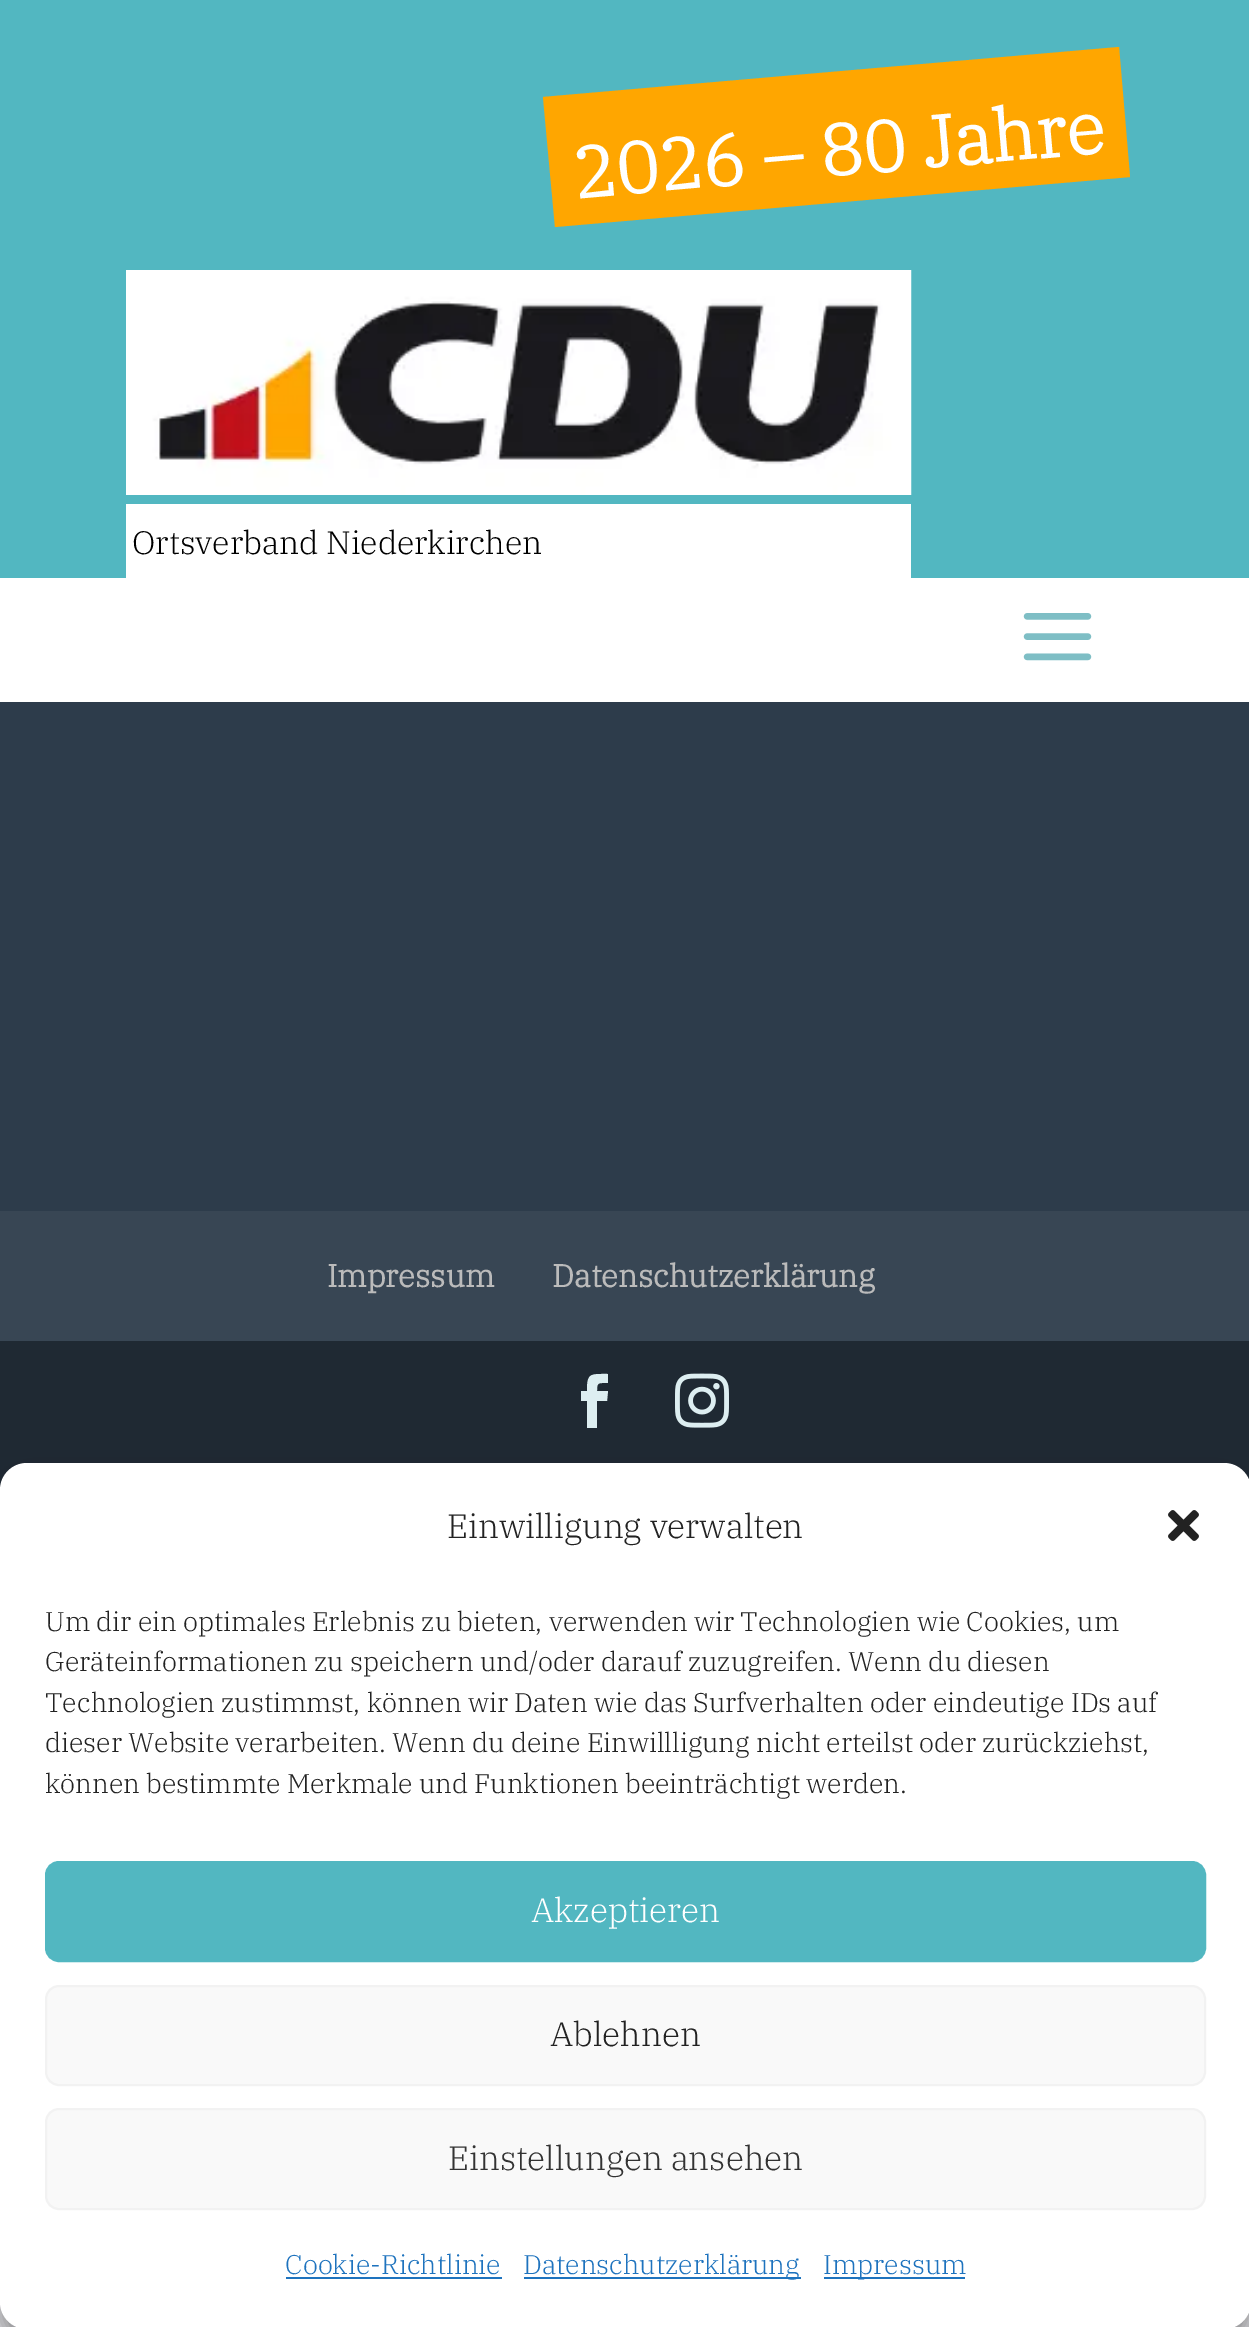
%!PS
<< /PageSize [1249 2327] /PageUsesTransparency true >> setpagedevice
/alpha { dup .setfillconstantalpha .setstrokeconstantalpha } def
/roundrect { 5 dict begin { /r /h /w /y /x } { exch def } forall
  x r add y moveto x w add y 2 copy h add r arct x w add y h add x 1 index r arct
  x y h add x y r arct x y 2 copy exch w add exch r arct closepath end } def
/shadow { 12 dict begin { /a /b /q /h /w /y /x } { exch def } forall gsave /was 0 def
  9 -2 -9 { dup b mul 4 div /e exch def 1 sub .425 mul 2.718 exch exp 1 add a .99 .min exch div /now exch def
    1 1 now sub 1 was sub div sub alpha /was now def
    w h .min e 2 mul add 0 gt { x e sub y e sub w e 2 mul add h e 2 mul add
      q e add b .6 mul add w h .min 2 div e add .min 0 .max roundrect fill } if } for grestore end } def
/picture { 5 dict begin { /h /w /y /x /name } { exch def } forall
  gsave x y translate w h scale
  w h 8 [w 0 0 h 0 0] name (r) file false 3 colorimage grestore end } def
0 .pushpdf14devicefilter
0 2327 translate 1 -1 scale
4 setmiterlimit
0.898 0.898 0.914 setrgbcolor
0 0 1249 2327 rectfill
0.322 0.718 0.757 setrgbcolor
0 0 1249 578 rectfill
1 0.651 0 setrgbcolor
newpath 543 97 moveto 1119 47 lineto 1130 177 lineto 555 227 lineto closepath fill
/IBMPlexSerif-Bold [72 0 0 -72 0 0] selectfont
1 setgray
gsave 575 199 translate -5 rotate 0 0 moveto (2026 – 80 Jahre) show grestore
(img1.rgb) 126 270 786 225 picture
126 504 785 74 rectfill
/IBMPlexSerif-Light [32.4 0 0 -32.4 0 0] selectfont
0 setgray
132 554 moveto (Ortsverband Niederkirchen) show
1 setgray
0 578 1249 124 rectfill
(img2.rgb) 1023 613 69 48 picture
0.176 0.235 0.294 setrgbcolor
0 702 1249 509 rectfill
0.22 0.275 0.329 setrgbcolor
0 1211 1249 130 rectfill
/IBMPlexSerif-Bold [31.5 0 0 -31.5 0 0] selectfont
0.733 setgray
327 1287 moveto (Impressum) show
552 1287 moveto (Datenschutzerklärung) show
0.122 0.161 0.2 setrgbcolor
0 1341 1249 149 rectfill
0.867 0.933 0.945 setrgbcolor
newpath 587 1428 moveto 597 1428 lineto 597 1401 lineto 607 1401 lineto 608 1391 lineto 597 1391 lineto 597 1382 598 1383 608 1383 curveto 608 1374 lineto 590 1374 587 1373 587 1391 curveto 581 1391 lineto 581 1401 lineto 587 1401 lineto closepath fill
(img3.rgb) 675 1373 54 55 picture
0 setgray
0 1476 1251 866 27 7 0.23 shadow
0 1485 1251 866 27 22.5 0.19 shadow
1 setgray
0 1463 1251 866 27 roundrect fill
/IBMPlexSerif-Light [33.75 0 0 -33.75 0 0] selectfont
0.133 setgray
447 1538 moveto (Einwilligung verwalten) show
(img4.rgb) 1168 1510 31 31 picture
/IBMPlexSerif-Light [27 0 0 -27 0 0] selectfont
45 1631 moveto (Um dir ein optimales Erlebnis zu bieten, verwenden wir Technologien wie Cookies, um) show
45 1671 moveto (Geräteinformationen zu speichern und/oder darauf zuzugreifen. Wenn du diesen) show
45 1712 moveto (Technologien zustimmst, können wir Daten wie das Surfverhalten oder eindeutige IDs auf) show
45 1752 moveto (dieser Website verarbeiten. Wenn du deine Einwillligung nicht erteilst oder zurückziehst,) show
45 1793 moveto (können bestimmte Merkmale und Funktionen beeinträchtigt werden.) show
0.322 0.718 0.757 setrgbcolor
46 1862 1159 99 13 roundrect gsave fill grestore
2 setlinewidth
stroke
/IBMPlexSerif-Light [33.75 0 0 -33.75 0 0] selectfont
1 setgray
531 1922 moveto (Akzeptieren) show
0.976 setgray
46 1986 1159 99 13 roundrect gsave fill grestore
0.949 setgray
stroke
0.133 setgray
550 2046 moveto (Ablehnen) show
0.976 setgray
46 2109 1159 100 13 roundrect gsave fill grestore
0.949 setgray
stroke
0.2 setgray
448 2170 moveto (Einstellungen ansehen) show
/IBMPlexSerif-Light [27 0 0 -27 0 0] selectfont
0.118 0.451 0.745 setrgbcolor
285 2274 moveto (Cookie-Richtlinie) show
286 2277 216 2 rectfill
524 2277 277 2 rectfill
523 2274 moveto (Datenschutzerklärung) show
824 2277 141 2 rectfill
823 2274 moveto (Impressum) show
.poppdf14devicefilter showpage
